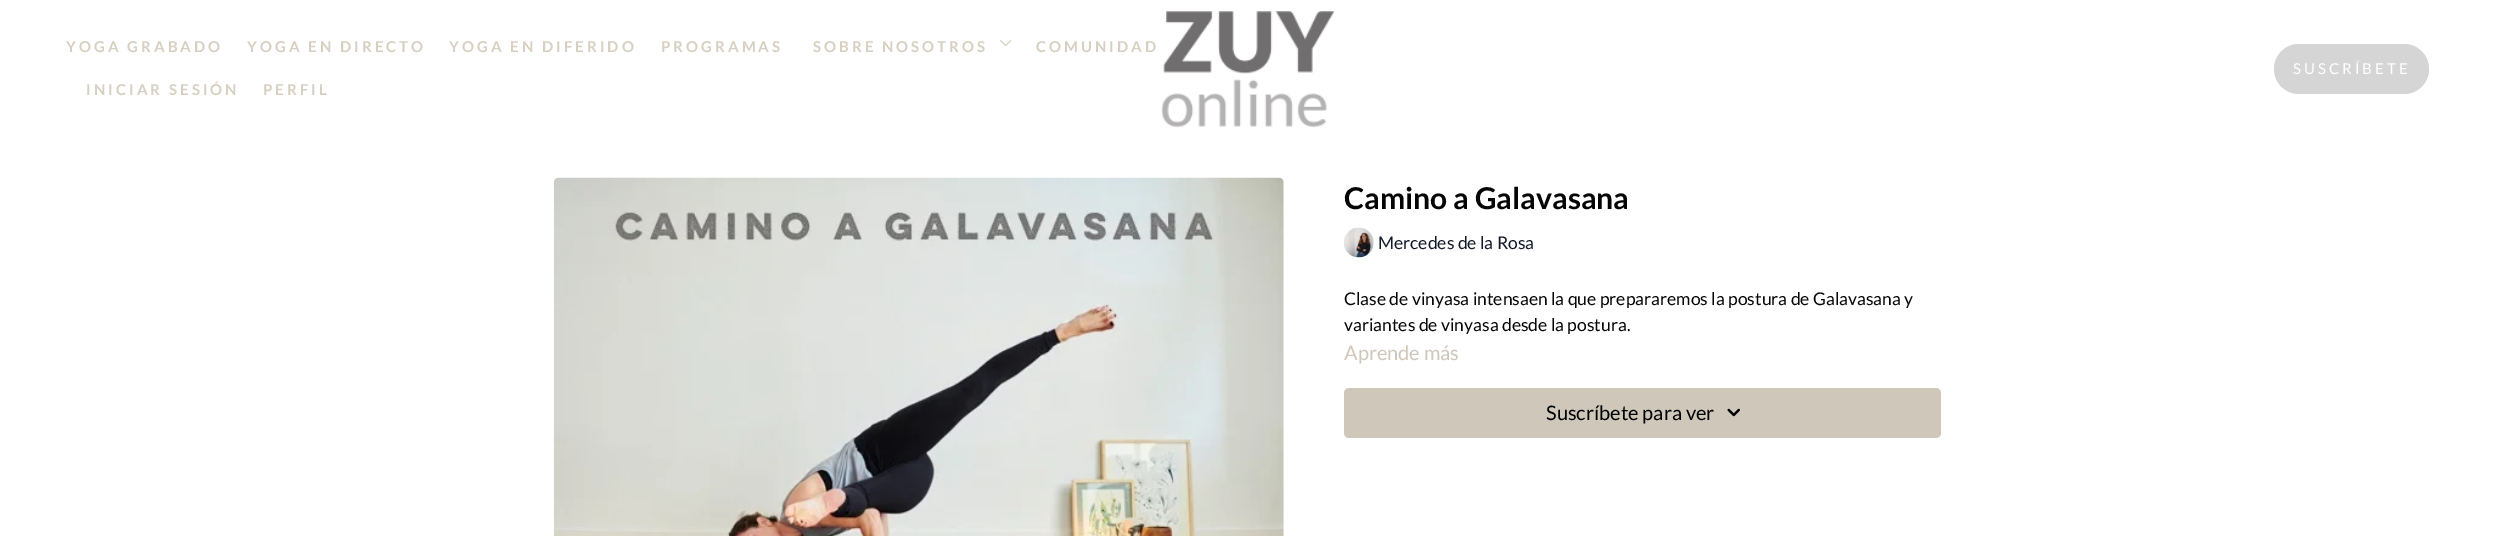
%!PS
<< /PageSize [2495 536] >> setpagedevice
/roundrect { 5 dict begin { /r /h /w /y /x } { exch def } forall
  x r add y moveto x w add y 2 copy h add r arct x w add y h add x 1 index r arct
  x y h add x y r arct x y 2 copy exch w add exch r arct closepath end } def
/picture { 5 dict begin { /h /w /y /x /name } { exch def } forall
  gsave x y translate w h scale
  w h 8 [w 0 0 h 0 0] name (r) file false 3 colorimage grestore end } def
0 536 translate 1 -1 scale
4 setmiterlimit
1 setgray
0 0 2495 536 rectfill
/Lato-Bold [15 0 0 -15 0 0] selectfont
0.843 0.816 0.757 setrgbcolor
66 52 moveto 3 0 (YOGA GRABADO) ashow
247 52 moveto 3 0 (YOGA EN DIRECTO) ashow
449 52 moveto 3 0 (YOGA EN DIFERIDO) ashow
661 52 moveto 3 0 (PROGRAMAS) ashow
813 52 moveto 3 0 (SOBRE NOSOTROS) ashow
(img1.rgb) 1000 40 12 6 picture
1036 52 moveto 3 0 (COMUNIDAD) ashow
86 95 moveto 3 0 (INICIAR SESIÓN) ashow
263 95 moveto 3 0 (PERFIL) ashow
(img2.rgb) 1161 11 174 117 picture
0.835 setgray
2274 44 155 50 25 roundrect fill
/Lato-Regular [15 0 0 -15 0 0] selectfont
1 setgray
2293 74 moveto 3 0 (SUSCRÍBETE) ashow
(img3.rgb) 553 177 731 359 picture
/Lato-Bold [30 0 0 -30 0 0] selectfont
0.024 setgray
1344 209 moveto (Camino a Galavasana) show
(img4.rgb) 1344 227 30 31 picture
/Lato-Regular [17.5 0 0 -17.5 0 0] selectfont
0.067 0.094 0.153 setrgbcolor
1378 249 moveto (Mercedes de la Rosa) show
0.024 setgray
1344 305 moveto (Clase de vinyasa intensaen la que prepararemos la postura de Galavasana y) show
1344 331 moveto (variantes de vinyasa desde la postura.) show
/Lato-Regular [20 0 0 -20 0 0] selectfont
0.808 0.78 0.729 setrgbcolor
1344 360 moveto (Aprende más) show
1344 388 597 50 5 roundrect fill
0 setgray
1546 420 moveto (Suscríbete para ver) show
(img5.rgb) 1727 408 13 9 picture
showpage
